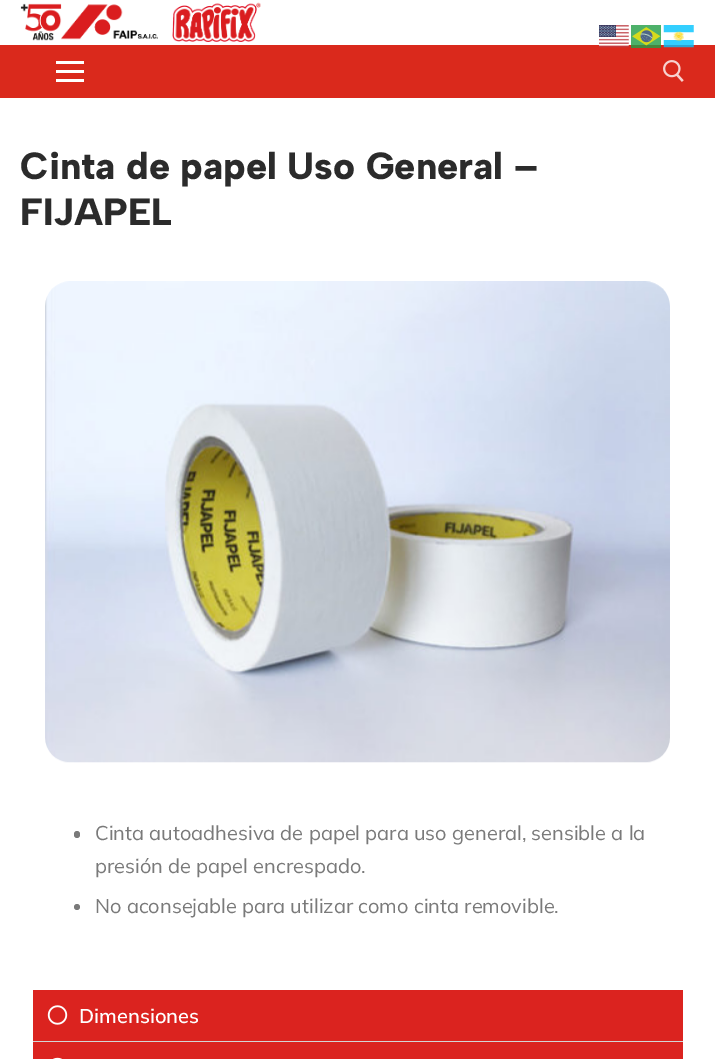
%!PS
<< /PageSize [715 1059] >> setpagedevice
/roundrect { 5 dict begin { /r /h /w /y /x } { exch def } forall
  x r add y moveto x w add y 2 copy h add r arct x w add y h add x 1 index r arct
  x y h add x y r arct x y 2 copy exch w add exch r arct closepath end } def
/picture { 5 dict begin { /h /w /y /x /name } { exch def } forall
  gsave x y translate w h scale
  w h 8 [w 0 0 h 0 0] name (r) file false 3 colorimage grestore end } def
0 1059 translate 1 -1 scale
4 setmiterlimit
1 setgray
0 0 715 1059 rectfill
0.855 0.161 0.11 setrgbcolor
0 45 715 53 rectfill
(img1.rgb) 599 25 30 23 picture
(img2.rgb) 631 25 30 23 picture
(img3.rgb) 663 25 31 23 picture
(img4.rgb) 20 2 241 40 picture
1 setgray
56 70 28 3 rectfill
56 61 28 3 rectfill
56 79 28 3 rectfill
(img5.rgb) 663 60 21 22 picture
/AlbertSans-ExtraBold [38 0 0 -38 0 0] selectfont
0.169 setgray
20 179 moveto (Cinta de papel Uso General –) show
20 225 moveto (FIJAPEL) show
(img6.rgb) 45 281 625 482 picture
0.478 setgray
74 831 6 7 3 roundrect fill
/Mulish-Regular [20 0 0 -20 0 0] selectfont
95 840 moveto (Cinta autoadhesiva de papel para uso general, sensible a la) show
95 873 moveto (presión de papel encrespado.) show
newpath 77 907 3 0 360 arc closepath fill
95 913 moveto (No aconsejable para utilizar como cinta removible.) show
0.859 0.137 0.122 setrgbcolor
33 990 650 69 rectfill
0.831 setgray
33 1041 650 1 rectfill
(img7.rgb) 47 1005 21 20 picture
/Mulish-SemiBold [20 0 0 -20 0 0] selectfont
1 setgray
79 1023 moveto (Dimensiones) show
(img8.rgb) 53 1057 9 2 picture
showpage
